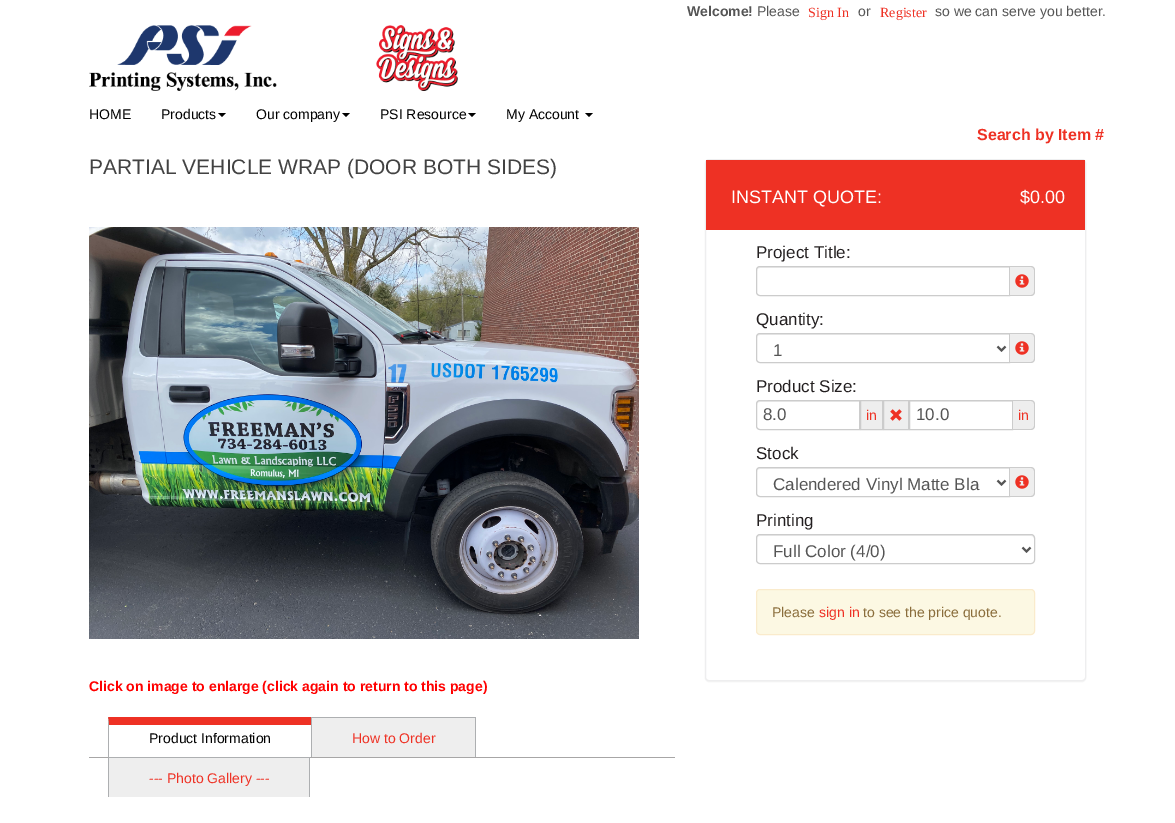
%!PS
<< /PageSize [1175 823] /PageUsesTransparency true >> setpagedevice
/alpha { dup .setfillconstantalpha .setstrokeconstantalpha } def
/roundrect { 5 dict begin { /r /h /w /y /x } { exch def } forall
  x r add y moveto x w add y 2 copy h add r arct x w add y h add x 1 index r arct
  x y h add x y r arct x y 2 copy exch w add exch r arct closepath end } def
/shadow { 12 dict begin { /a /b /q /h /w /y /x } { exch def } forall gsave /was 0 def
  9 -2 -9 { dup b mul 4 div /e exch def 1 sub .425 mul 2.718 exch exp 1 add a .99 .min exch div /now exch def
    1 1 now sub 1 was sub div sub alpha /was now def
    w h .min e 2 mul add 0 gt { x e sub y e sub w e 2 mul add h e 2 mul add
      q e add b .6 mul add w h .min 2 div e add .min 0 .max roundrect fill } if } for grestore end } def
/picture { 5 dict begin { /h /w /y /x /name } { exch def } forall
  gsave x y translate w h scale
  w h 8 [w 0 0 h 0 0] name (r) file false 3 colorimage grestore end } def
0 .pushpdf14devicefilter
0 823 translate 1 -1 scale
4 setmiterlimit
1 setgray
0 0 1175 823 rectfill
/LiberationSans-Bold [14 0 0 -14 0 0] selectfont
0.333 setgray
687 16 moveto (Welcome!) show
/LiberationSans-Regular [14 0 0 -14 0 0] selectfont
757 16 moveto (Please) show
/LiberationSerif-Regular [14 0 0 -14 0 0] selectfont
0.933 0.192 0.141 setrgbcolor
808 17 moveto (Sign In) show
/LiberationSans-Regular [14 0 0 -14 0 0] selectfont
0.333 setgray
858 16 moveto (or) show
/LiberationSerif-Regular [14 0 0 -14 0 0] selectfont
0.933 0.192 0.141 setrgbcolor
880 17 moveto (Register) show
/LiberationSans-Regular [14 0 0 -14 0 0] selectfont
0.333 setgray
935 16 moveto (so we can serve you better.) show
(img1.rgb) 89 25 369 66 picture
0 setgray
89 119 moveto (HOME) show
161 119 moveto (Products) show
newpath 218 113 moveto 226 113 lineto 222 117 lineto closepath fill
256 119 moveto (Our company) show
newpath 342 113 moveto 350 113 lineto 346 117 lineto closepath fill
380 119 moveto (PSI Resource) show
newpath 468 113 moveto 476 113 lineto 472 117 lineto closepath fill
506 119 moveto (My Account) show
newpath 585 113 moveto 593 113 lineto 589 117 lineto closepath fill
/LiberationSans-Bold [16 0 0 -16 0 0] selectfont
0.933 0.192 0.141 setrgbcolor
977 140 moveto (Search by Item #) show
/LiberationSans-Regular [21 0 0 -21 0 0] selectfont
0.259 setgray
89 174 moveto (PARTIAL VEHICLE WRAP \(DOOR BOTH SIDES\)) show
(img2.rgb) 89 227 550 412 picture
/LiberationSans-Bold [14 0 0 -14 0 0] selectfont
1 0 0 setrgbcolor
89 691 moveto (Click on image to enlarge \(click again to return to this page\)) show
0.933 0.192 0.141 setrgbcolor
newpath 108 717 moveto 312 717 lineto 311 725 lineto 109 725 lineto closepath fill
0.678 0.686 0.694 setrgbcolor
newpath 108 757 moveto 108 717 lineto 109 725 lineto 109 757 lineto closepath fill
/LiberationSans-Regular [14 0 0 -14 0 0] selectfont
0 setgray
149 743 moveto (Product Information) show
0.933 setgray
312 718 163 39 rectfill
0.678 0.686 0.694 setrgbcolor
311 717 165 1 rectfill
475 717 1 40 rectfill
311 717 1 40 rectfill
0.933 0.192 0.141 setrgbcolor
352 743 moveto (How to Order) show
0.933 setgray
109 758 200 39 rectfill
0.655 0.651 0.651 setrgbcolor
89 757 586 1 rectfill
0.678 0.686 0.694 setrgbcolor
108 757 202 1 rectfill
309 757 1 40 rectfill
108 757 1 40 rectfill
0.933 0.192 0.141 setrgbcolor
149 783 moveto (--- Photo Gallery ---) show
gsave
newpath 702 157 moveto 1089 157 lineto 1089 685 lineto 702 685 lineto closepath 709 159 moveto 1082 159 lineto 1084 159 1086 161 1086 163 curveto 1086 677 lineto 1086 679 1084 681 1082 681 curveto 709 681 lineto 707 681 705 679 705 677 curveto 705 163 lineto 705 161 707 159 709 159 curveto closepath eoclip newpath
0 setgray
705 160 381 522 4 0.5 0.05 shadow
grestore
0.933 0.933 0.937 setrgbcolor
705.5 159.5 380 521 3.5 roundrect stroke
0.933 0.192 0.141 setrgbcolor
706 160 379 70 rectfill
/LiberationSans-Regular [18 0 0 -18 0 0] selectfont
1 setgray
1020 203 moveto ($0.00) show
/LiberationSans-Regular [17 0 0 -17 0 0] selectfont
0.137 0.122 0.125 setrgbcolor
756 258 moveto (Project Title:) show
0.925 setgray
newpath 760 268 moveto 1009 268 lineto 1009 267 lineto 760 267 lineto 758 267 757 269 757 271 curveto 757 269 758 268 760 268 curveto closepath fill
0.8 setgray
newpath 760 266.5 moveto 1009.5 266.5 lineto 1009.5 295.5 lineto 760 295.5 lineto 758 295.5 756.5 294 756.5 292 curveto 756.5 270 lineto 756.5 268 758 266.5 760 266.5 curveto closepath stroke
0.933 setgray
newpath 1010 266 moveto 1031 266 lineto 1033 266 1035 268 1035 270 curveto 1035 292 lineto 1035 294 1033 296 1031 296 curveto 1010 296 lineto closepath fill
0.8 setgray
newpath 1010 266 moveto 1031 266 lineto 1033 266 1035 268 1035 270 curveto 1035 292 lineto 1035 294 1033 296 1031 296 curveto 1010 296 lineto closepath 1010 267 moveto 1031 267 lineto 1032.5 267 1034 268.5 1034 270 curveto 1034 292 lineto 1034 293.5 1032.5 295 1031 295 curveto 1010 295 lineto closepath eofill
(img3.rgb) 1015 274 14 14 picture
0.137 0.122 0.125 setrgbcolor
756 325 moveto (Quantity:) show
0.925 setgray
newpath 760 335 moveto 1009 335 lineto 1009 334 lineto 760 334 lineto 758 334 757 336 757 338 curveto 757 336 758 335 760 335 curveto closepath fill
0.8 setgray
newpath 760 333.5 moveto 1009.5 333.5 lineto 1009.5 362.5 lineto 760 362.5 lineto 758 362.5 756.5 361 756.5 359 curveto 756.5 337 lineto 756.5 335 758 333.5 760 333.5 curveto closepath stroke
0.333 setgray
2 setlinewidth
newpath 997.5 346.5 moveto 1001.5 350.5 lineto 1005.5 346.5 lineto stroke
773 356 moveto (1) show
0.933 setgray
newpath 1010 333 moveto 1031 333 lineto 1033 333 1035 335 1035 337 curveto 1035 359 lineto 1035 361 1033 363 1031 363 curveto 1010 363 lineto closepath fill
0.8 setgray
newpath 1010 333 moveto 1031 333 lineto 1033 333 1035 335 1035 337 curveto 1035 359 lineto 1035 361 1033 363 1031 363 curveto 1010 363 lineto closepath 1010 334 moveto 1031 334 lineto 1032.5 334 1034 335.5 1034 337 curveto 1034 359 lineto 1034 360.5 1032.5 362 1031 362 curveto 1010 362 lineto closepath eofill
(img3.rgb) 1015 341 14 14 picture
0.137 0.122 0.125 setrgbcolor
756 392 moveto (Product Size:) show
0.925 setgray
newpath 760 402 moveto 859 402 lineto 859 401 lineto 760 401 lineto 758 401 757 402 757 404 curveto 757 405 lineto 757 403 758 402 760 402 curveto closepath fill
0.8 setgray
1 setlinewidth
newpath 760 400.5 moveto 859.5 400.5 lineto 859.5 429.5 lineto 760 429.5 lineto 758 429.5 756.5 428 756.5 426 curveto 756.5 404 lineto 756.5 402 758 400.5 760 400.5 curveto closepath stroke
0.333 setgray
763 420 moveto (8.0) show
0.933 setgray
newpath 860.5 400.5 moveto 882.5 400.5 lineto 882.5 429.5 lineto 860.5 429.5 lineto closepath gsave fill grestore
0.8 setgray
stroke
/LiberationSans-Regular [14 0 0 -14 0 0] selectfont
0.933 0.192 0.141 setrgbcolor
866 420 moveto (in) show
0.933 setgray
newpath 883.5 400.5 moveto 908.5 400.5 lineto 908.5 429.5 lineto 883.5 429.5 lineto closepath gsave fill grestore
0.8 setgray
stroke
(img4.rgb) 890 409 12 12 picture
0.925 setgray
910 401 102 1 rectfill
0.8 setgray
909.5 400.5 103 29 rectstroke
/LiberationSans-Regular [17 0 0 -17 0 0] selectfont
0.333 setgray
916 420 moveto (10.0) show
0.933 setgray
newpath 1013 400 moveto 1031 400 lineto 1033 400 1035 402 1035 404 curveto 1035 426 lineto 1035 428 1033 430 1031 430 curveto 1013 430 lineto closepath fill
0.8 setgray
newpath 1013 400 moveto 1031 400 lineto 1033 400 1035 402 1035 404 curveto 1035 426 lineto 1035 428 1033 430 1031 430 curveto 1013 430 lineto closepath 1013 401 moveto 1031 401 lineto 1032.5 401 1034 402.5 1034 404 curveto 1034 426 lineto 1034 427.5 1032.5 429 1031 429 curveto 1013 429 lineto closepath eofill
/LiberationSans-Regular [14 0 0 -14 0 0] selectfont
0.933 0.192 0.141 setrgbcolor
1018 420 moveto (in) show
/LiberationSans-Regular [17 0 0 -17 0 0] selectfont
0.137 0.122 0.125 setrgbcolor
756 459 moveto (Stock) show
0.925 setgray
newpath 760 469 moveto 1009 469 lineto 1009 468 lineto 760 468 lineto 758 468 757 470 757 472 curveto 757 470 758 469 760 469 curveto closepath fill
0.8 setgray
newpath 760 467.5 moveto 1009.5 467.5 lineto 1009.5 496.5 lineto 760 496.5 lineto 758 496.5 756.5 495 756.5 493 curveto 756.5 471 lineto 756.5 469 758 467.5 760 467.5 curveto closepath stroke
0.333 setgray
2 setlinewidth
newpath 997.5 480.5 moveto 1001.5 484.5 lineto 1005.5 480.5 lineto stroke
773 490 moveto (Calendered Vinyl Matte Bla) show
0.933 setgray
newpath 1010 467 moveto 1031 467 lineto 1033 467 1035 469 1035 471 curveto 1035 493 lineto 1035 495 1033 497 1031 497 curveto 1010 497 lineto closepath fill
0.8 setgray
newpath 1010 467 moveto 1031 467 lineto 1033 467 1035 469 1035 471 curveto 1035 493 lineto 1035 495 1033 497 1031 497 curveto 1010 497 lineto closepath 1010 468 moveto 1031 468 lineto 1032.5 468 1034 469.5 1034 471 curveto 1034 493 lineto 1034 494.5 1032.5 496 1031 496 curveto 1010 496 lineto closepath eofill
(img3.rgb) 1015 475 14 14 picture
0.137 0.122 0.125 setrgbcolor
756 526 moveto (Printing) show
0.925 setgray
newpath 760 536 moveto 1031 536 lineto 1033 536 1034 537 1034 539 curveto 1034 538 lineto 1034 536 1033 535 1031 535 curveto 760 535 lineto 758 535 757 536 757 538 curveto 757 539 lineto 757 537 758 536 760 536 curveto closepath fill
0.8 setgray
1 setlinewidth
756.5 534.5 278 29 3.5 roundrect stroke
0.333 setgray
2 setlinewidth
newpath 1022.5 547.5 moveto 1026.5 551.5 lineto 1030.5 547.5 lineto stroke
773 557 moveto (Full Color \(4/0\)) show
0.988 0.973 0.89 setrgbcolor
756.5 589.5 278 45 3.5 roundrect gsave fill grestore
0.98 0.922 0.8 setrgbcolor
1 setlinewidth
stroke
/LiberationSans-Regular [14 0 0 -14 0 0] selectfont
0.541 0.427 0.231 setrgbcolor
772 617 moveto (Please) show
0.933 0.192 0.141 setrgbcolor
819 617 moveto (sign in) show
0.541 0.427 0.231 setrgbcolor
863 617 moveto (to see the price quote.) show
/LiberationSans-Regular [18 0 0 -18 0 0] selectfont
1 setgray
731 203 moveto (INSTANT QUOTE:) show
.poppdf14devicefilter showpage
